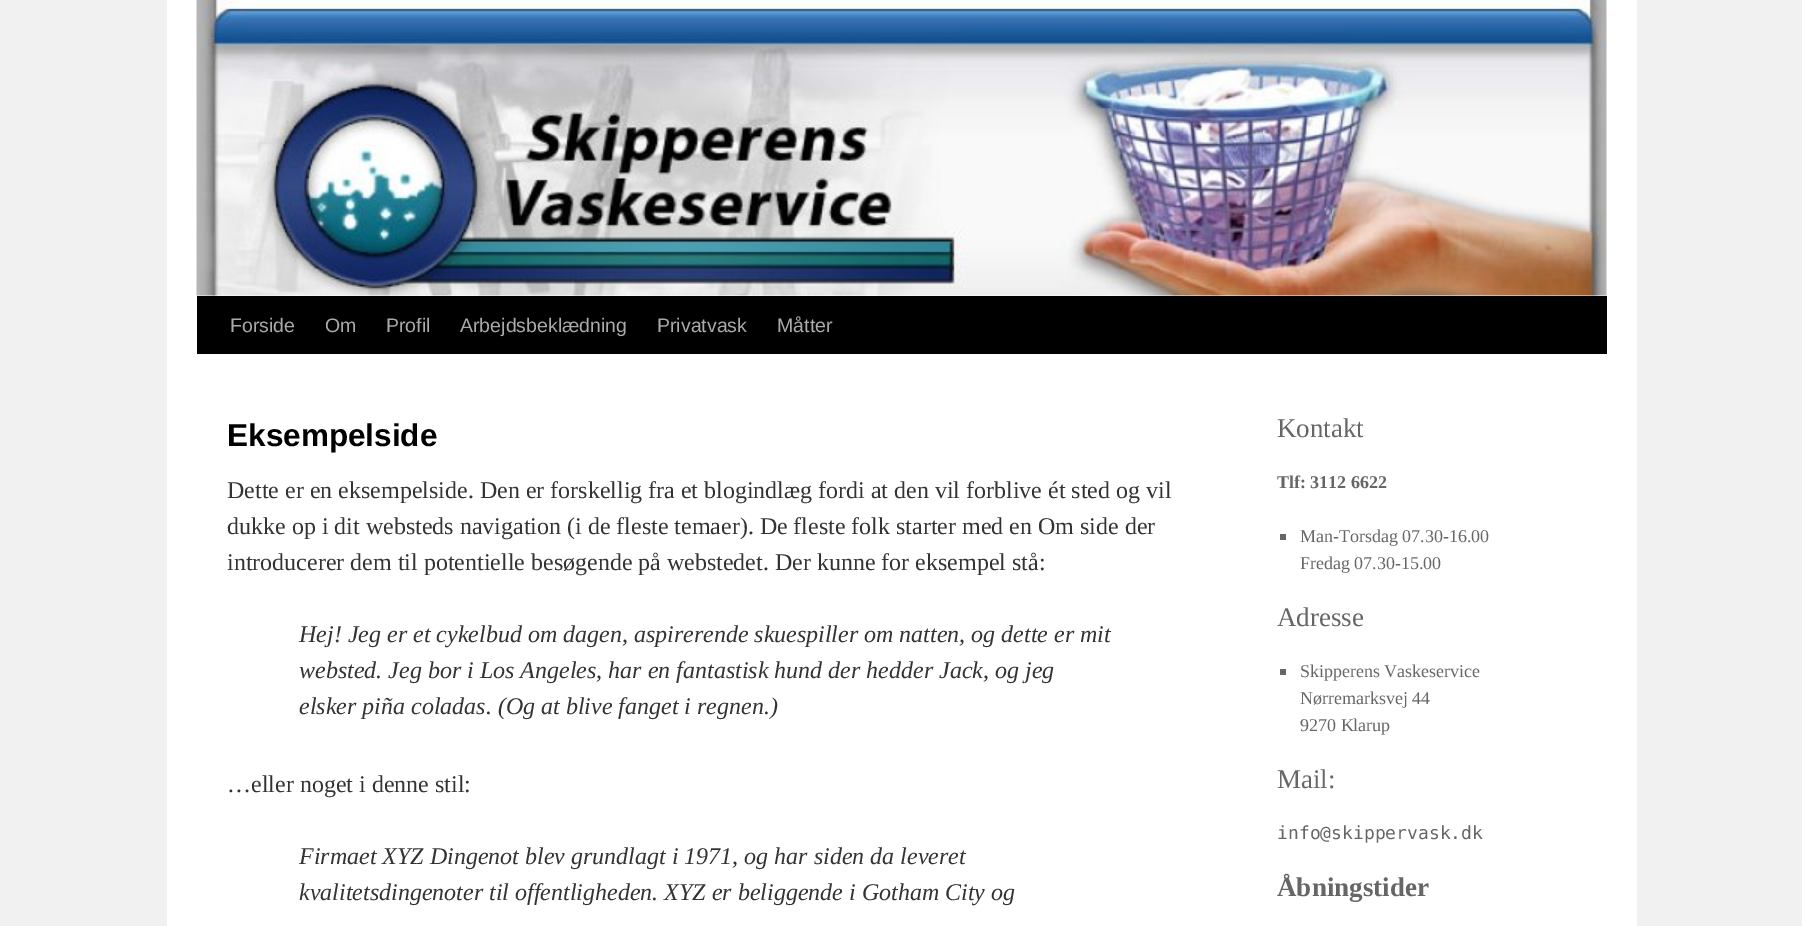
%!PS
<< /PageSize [1802 926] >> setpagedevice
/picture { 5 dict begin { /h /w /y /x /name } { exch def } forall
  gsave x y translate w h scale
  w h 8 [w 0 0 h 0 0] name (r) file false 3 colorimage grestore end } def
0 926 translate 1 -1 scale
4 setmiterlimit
0.945 setgray
0 0 1802 926 rectfill
1 setgray
167 0 1470 926 rectfill
0 setgray
197 296 1410 58 rectfill
(img1.rgb) 196 0 1411 296 picture
/LiberationSans-Regular [19.5 0 0 -19.5 0 0] selectfont
0.667 setgray
230 332 moveto (Forside) show
325 332 moveto (Om) show
386 332 moveto (Profil) show
460 332 moveto (Arbejdsbeklædning) show
657 332 moveto (Privatvask) show
777 332 moveto (Måtter) show
/LiberationSans-Bold [31.5 0 0 -31.5 0 0] selectfont
0 setgray
227 446 moveto (Eksempelside) show
/LiberationSerif-Regular [24 0 0 -24 0 0] selectfont
0.2 setgray
227 498 moveto (Dette er en eksempelside. Den er forskellig fra et blogindlæg fordi at den vil forblive ét sted og vil) show
227 534 moveto (dukke op i dit websteds navigation \(i de fleste temaer\). De fleste folk starter med en Om side der) show
227 570 moveto (introducerer dem til potentielle besøgende på webstedet. Der kunne for eksempel stå:) show
/LiberationSerif-Italic [24 0 0 -24 0 0] selectfont
299 642 moveto (Hej! Jeg er et cykelbud om dagen, aspirerende skuespiller om natten, og dette er mit) show
299 678 moveto (websted. Jeg bor i Los Angeles, har en fantastisk hund der hedder Jack, og jeg) show
299 714 moveto (elsker piña coladas. \(Og at blive fanget i regnen.\)) show
/LiberationSerif-Regular [24 0 0 -24 0 0] selectfont
227 792 moveto (…eller noget i denne stil:) show
/LiberationSerif-Italic [24 0 0 -24 0 0] selectfont
299 864 moveto (Firmaet XYZ Dingenot blev grundlagt i 1971, og har siden da leveret) show
299 900 moveto (kvalitetsdingenoter til offentligheden. XYZ er beliggende i Gotham City og) show
/LiberationSerif-Regular [27 0 0 -27 0 0] selectfont
0.4 setgray
1277 437 moveto (Kontakt) show
gsave
1277 414 330 459 rectclip
/LiberationSerif-Bold [18 0 0 -18 0 0] selectfont
1277 488 moveto (Tlf: 3112 6622) show
grestore
1280 534 6 6 rectfill
/LiberationSerif-Regular [18 0 0 -18 0 0] selectfont
1300 542 moveto (Man-Torsdag 07.30-16.00) show
1300 569 moveto (Fredag 07.30-15.00) show
/LiberationSerif-Regular [27 0 0 -27 0 0] selectfont
1277 626 moveto (Adresse) show
1280 669 6 6 rectfill
/LiberationSerif-Regular [18 0 0 -18 0 0] selectfont
1300 677 moveto (Skipperens Vaskeservice) show
1300 704 moveto (Nørremarksvej 44) show
1300 731 moveto (9270 Klarup) show
/LiberationSerif-Regular [27 0 0 -27 0 0] selectfont
1277 788 moveto (Mail:) show
/DejaVuSansMono-Regular [18 0 0 -18 0 0] selectfont
1277 839 moveto (info@skippervask.dk) show
/LiberationSerif-Bold [27 0 0 -27 0 0] selectfont
1277 896 moveto (Åbningstider) show
showpage
